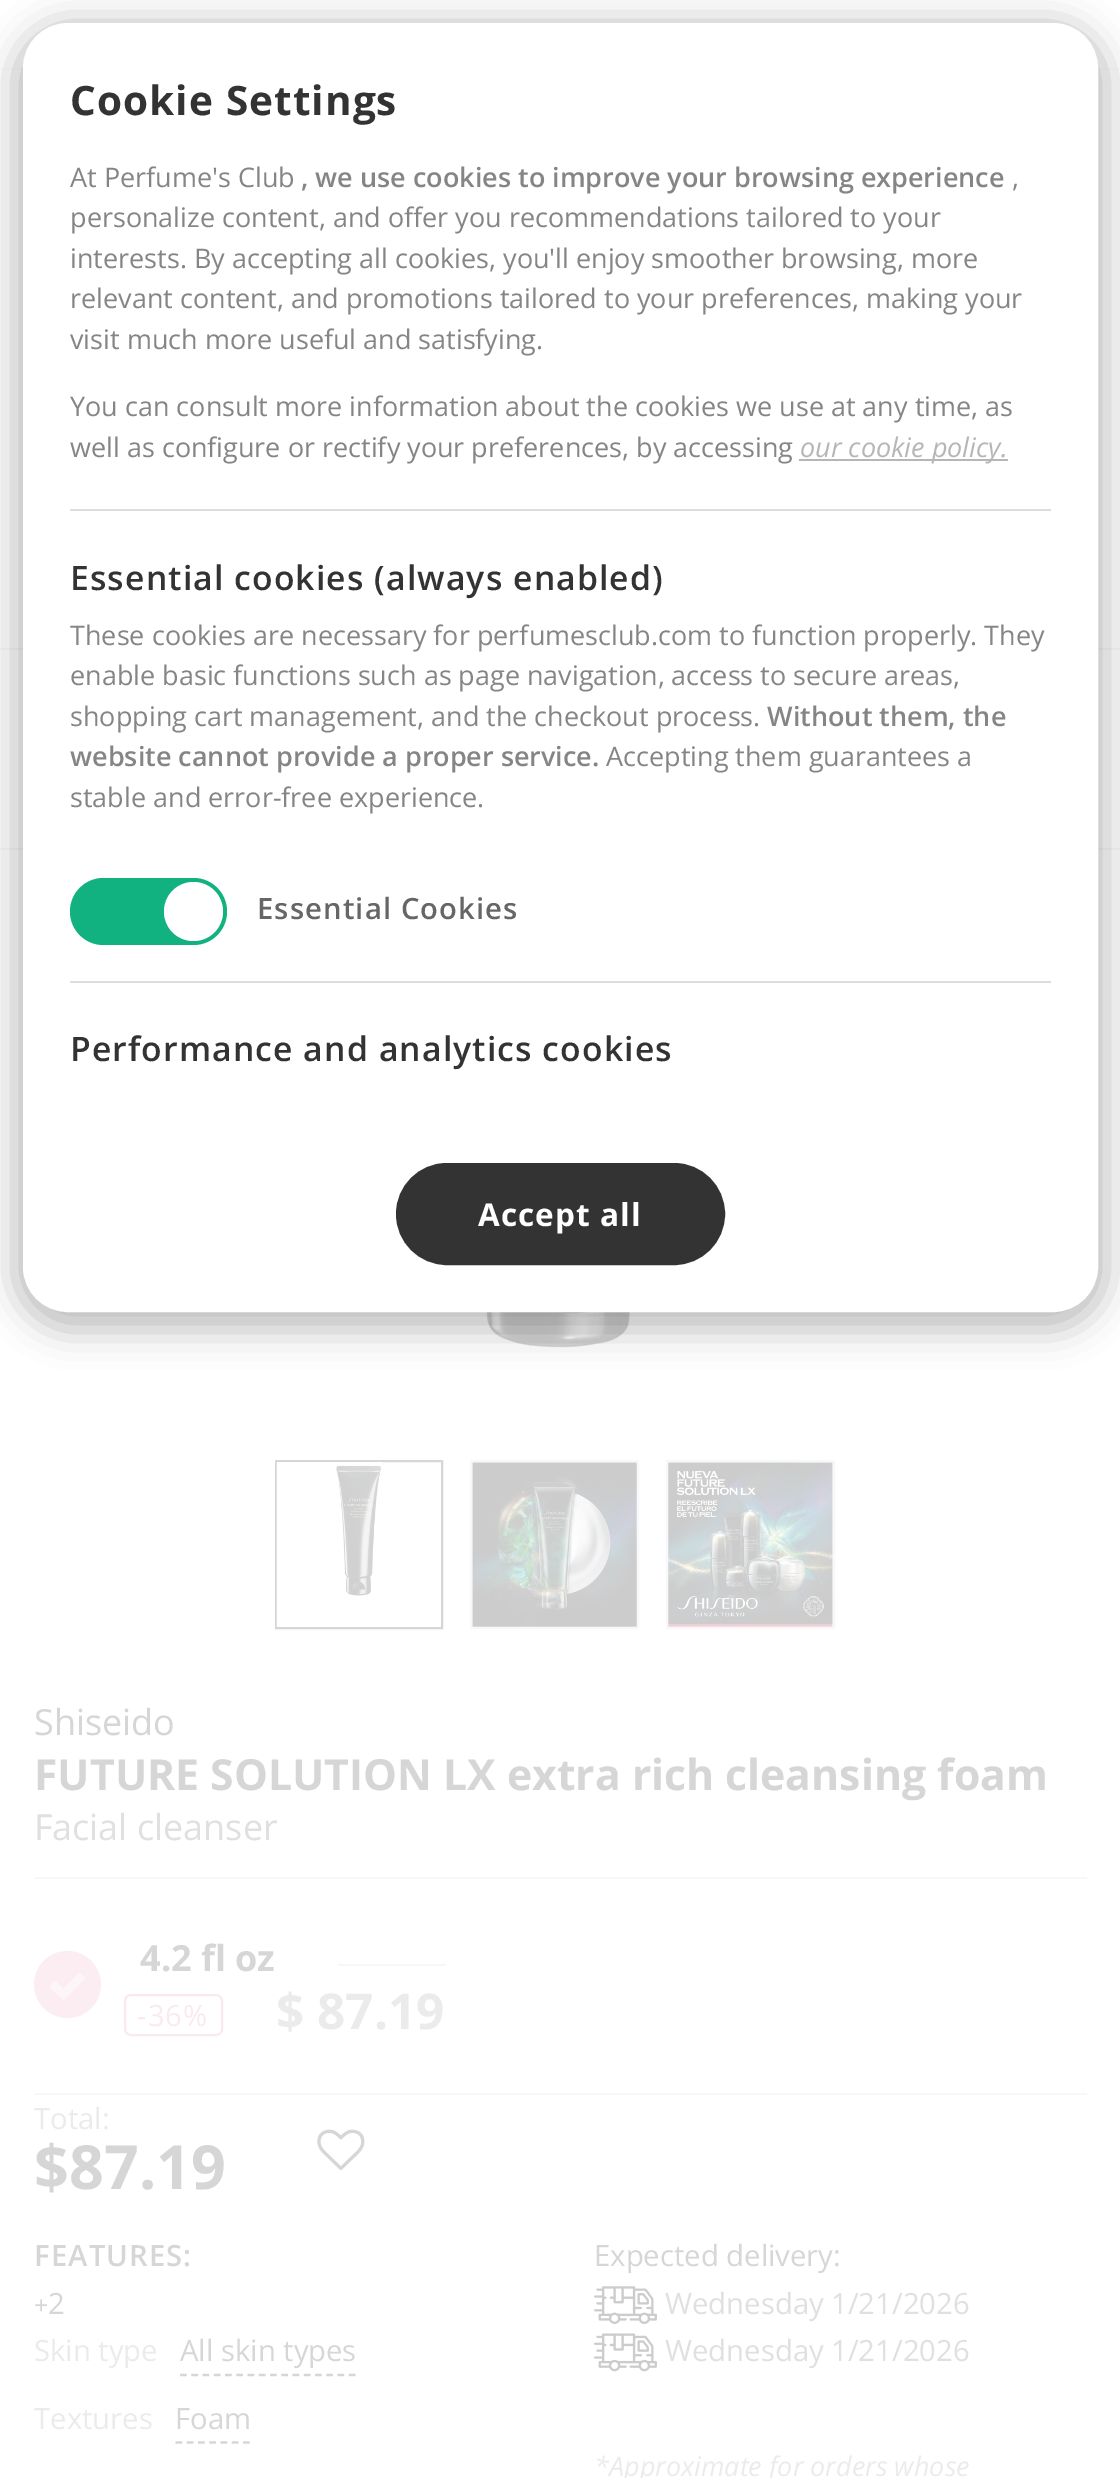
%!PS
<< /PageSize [1120 2478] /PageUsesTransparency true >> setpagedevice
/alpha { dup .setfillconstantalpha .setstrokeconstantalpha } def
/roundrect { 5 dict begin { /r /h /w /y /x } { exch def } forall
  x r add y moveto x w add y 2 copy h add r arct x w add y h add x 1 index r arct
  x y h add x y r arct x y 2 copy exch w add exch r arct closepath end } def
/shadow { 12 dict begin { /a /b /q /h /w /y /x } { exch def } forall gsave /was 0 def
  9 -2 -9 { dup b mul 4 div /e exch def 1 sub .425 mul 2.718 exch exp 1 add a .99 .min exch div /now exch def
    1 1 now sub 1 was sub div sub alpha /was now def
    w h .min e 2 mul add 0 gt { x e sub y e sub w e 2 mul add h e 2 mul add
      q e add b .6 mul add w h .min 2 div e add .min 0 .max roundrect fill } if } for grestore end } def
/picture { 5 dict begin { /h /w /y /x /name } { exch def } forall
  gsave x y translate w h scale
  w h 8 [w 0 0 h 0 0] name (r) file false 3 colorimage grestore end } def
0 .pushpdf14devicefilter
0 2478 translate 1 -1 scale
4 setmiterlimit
1 setgray
0 0 1120 2478 rectfill
0.988 setgray
0 68 1120 2 rectfill
0.973 setgray
0 648 1120 2 rectfill
0 848 1120 2 rectfill
(img1.rgb) 431 1312 259 38 picture
0 setgray
14 23 1093 1307 54 18 0.25 shadow
1 setgray
24 24 1073 1287 44 roundrect gsave fill grestore
2 setlinewidth
stroke
/OpenSans-Bold [40.5 0 0 -40.5 0 0] selectfont
0.2 setgray
70 115 moveto 1.1 0 (Cookie Settings) ashow
/OpenSans-Regular [27 0 0 -27 0 0] selectfont
0.522 setgray
70 187 moveto (At Perfume's Club) show
/OpenSans-SemiBold [27 0 0 -27 0 0] selectfont
301 187 moveto (, we use cookies to improve your browsing experience) show
/OpenSans-Regular [27 0 0 -27 0 0] selectfont
1012 187 moveto (,) show
70 227 moveto (personalize content, and offer you recommendations tailored to your) show
70 268 moveto (interests. By accepting all cookies, you'll enjoy smoother browsing, more) show
70 308 moveto (relevant content, and promotions tailored to your preferences, making your) show
70 349 moveto (visit much more useful and satisfying.) show
70 416 moveto (You can consult more information about the cookies we use at any time, as) show
70 457 moveto (well as configure or rectify your preferences, by accessing) show
0.714 setgray
799 459 209 2 rectfill
/OpenSans-Italic [27 0 0 -27 0 0] selectfont
800 457 moveto (our cookie policy.) show
0.867 setgray
70 509 981 2 rectfill
/OpenSans-SemiBold [33.75 0 0 -33.75 0 0] selectfont
0.2 setgray
70 590 moveto 1.1 0 (Essential cookies \(always enabled\)) ashow
/OpenSans-Regular [27 0 0 -27 0 0] selectfont
0.522 setgray
70 645 moveto (These cookies are necessary for perfumesclub.com to function properly. They) show
70 685 moveto (enable basic functions such as page navigation, access to secure areas,) show
70 726 moveto (shopping cart management, and the checkout process.) show
/OpenSans-SemiBold [27 0 0 -27 0 0] selectfont
767 726 moveto (Without them, the) show
70 766 moveto (website cannot provide a proper service.) show
/OpenSans-Regular [27 0 0 -27 0 0] selectfont
606 766 moveto (Accepting them guarantees a) show
70 807 moveto (stable and error-free experience.) show
0.067 0.698 0.498 setrgbcolor
70 878 157 67 33.5 roundrect fill
1 setgray
newpath 193.5 911.5 29.5 0 360 arc closepath fill
/OpenSans-SemiBold [29.25 0 0 -29.25 0 0] selectfont
0.4 setgray
257 919 moveto 1.1 0 (Essential Cookies) ashow
0.867 setgray
70 981 981 2 rectfill
/OpenSans-SemiBold [33.75 0 0 -33.75 0 0] selectfont
0.2 setgray
70 1061 moveto 1.1 0 (Performance and analytics cookies) ashow
398.5 1165.5 324 97 48.5 roundrect gsave fill grestore
5 setlinewidth
stroke
/OpenSans-Bold [31.5 0 0 -31.5 0 0] selectfont
1 setgray
478 1226 moveto 1.1 0 (Accept all) ashow
0.839 setgray
2 setlinewidth
276 1461 166 167 rectstroke
0.973 setgray
471 1461 167 167 rectstroke
667 1461 167 167 rectstroke
(img2.rgb) 276 1462 106 165 picture
(img3.rgb) 472 1462 165 165 picture
(img4.rgb) 668 1462 165 165 picture
/OpenSans-Regular [36 0 0 -36 0 0] selectfont
0.839 setgray
34 1735 moveto (Shiseido) show
/OpenSans-Bold [42.75 0 0 -42.75 0 0] selectfont
34 1790 moveto (FUTURE SOLUTION LX extra rich cleansing foam) show
/NotoSans-Regular [36 0 0 -36 0 0] selectfont
0.878 setgray
34 1840 moveto (F) show
/OpenSans-Regular [36 0 0 -36 0 0] selectfont
52 1840 moveto (acial cleanser) show
0.973 setgray
34 1877 1053 2 rectfill
34 2093 1053 2 rectfill
0.988 0.929 0.953 setrgbcolor
newpath 67.5 1984.5 33.5 0 360 arc closepath fill
(img5.rgb) 50 1973 35 27 picture
/OpenSans-Bold [36 0 0 -36 0 0] selectfont
0.839 setgray
140 1971 moveto (4.2 fl oz) show
0.969 setgray
338 1964 108 2 rectfill
/OpenSans-Bold [49.5 0 0 -49.5 0 0] selectfont
0.922 setgray
276 2029 moveto ($ 87.19) show
0.984 0.914 0.945 setrgbcolor
125 1995 97 40 6 roundrect stroke
/OpenSans-Regular [29.25 0 0 -29.25 0 0] selectfont
137 2026 moveto 1.1 0 (-36%) ashow
0.922 setgray
34 2129 moveto (Total:) show
/OpenSans-Bold [61 0 0 -61 0 0] selectfont
0.839 setgray
34 2189 moveto ($87.19) show
(img6.rgb) 317 2129 48 42 picture
/OpenSans-SemiBold [29.25 0 0 -29.25 0 0] selectfont
34 2266 moveto 1.1 0 (FEATURES:) ashow
/OpenSans-Regular [25 0 0 -25 0 0] selectfont
34 2314 moveto (+) show
/OpenSans-Regular [29.25 0 0 -29.25 0 0] selectfont
48 2314 moveto (2) show
0.922 setgray
34 2361 moveto (Skin type) show
0.839 setgray
2.2 setlinewidth
[6.75 4.5] 0 setdash
newpath 180 2375 moveto 355.5 2375 lineto stroke
180 2361 moveto (All skin types) show
0.922 setgray
34 2429 moveto (Textures) show
0.839 setgray
newpath 175.5 2442.5 moveto 250 2442.5 lineto stroke
175 2429 moveto (Foam) show
594 2266 moveto (Expected delivery:) show
(img7.rgb) 594 2286 63 38 picture
0.878 setgray
665 2314 moveto (Wednesday 1/21/2026) show
(img8.rgb) 594 2333 63 39 picture
665 2361 moveto (Wednesday 1/21/2026) show
/OpenSans-Italic [27 0 0 -27 0 0] selectfont
0.922 setgray
594 2476 moveto (*Approximate for orders whose) show
.poppdf14devicefilter showpage
